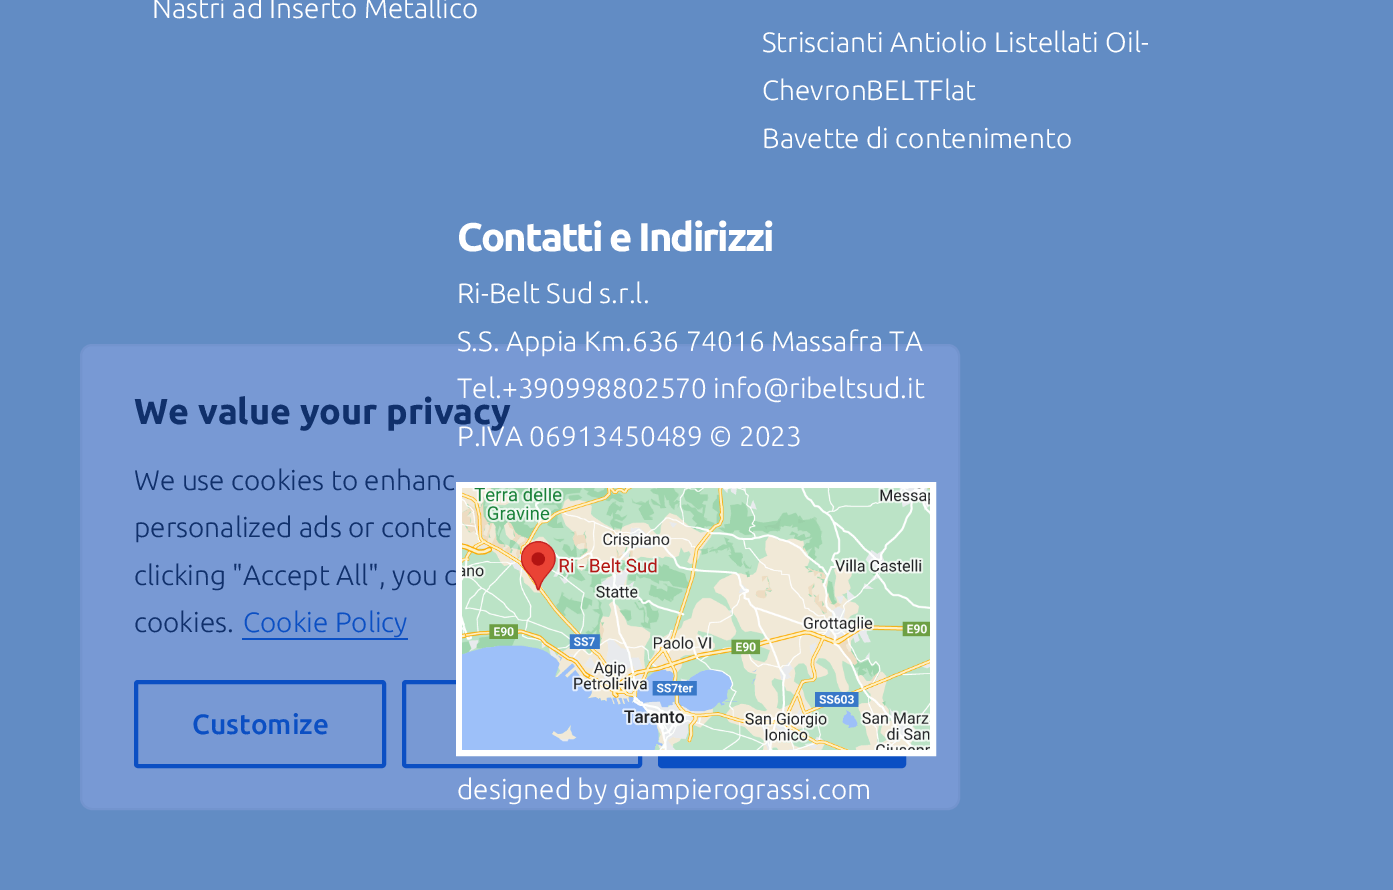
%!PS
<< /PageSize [1393 890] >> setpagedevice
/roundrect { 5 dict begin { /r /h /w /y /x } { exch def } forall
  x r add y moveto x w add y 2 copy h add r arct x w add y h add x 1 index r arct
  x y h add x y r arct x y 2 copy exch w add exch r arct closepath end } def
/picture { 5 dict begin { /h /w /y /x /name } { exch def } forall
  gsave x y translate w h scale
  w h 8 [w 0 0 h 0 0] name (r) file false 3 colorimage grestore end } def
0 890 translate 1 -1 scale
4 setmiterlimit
0.384 0.549 0.769 setrgbcolor
0 0 1393 890 rectfill
/Ubuntu-Light [28 0 0 -28 0 0] selectfont
1 setgray
152 18 moveto (Nastri ad Inserto Metallico) show
762 52 moveto (Striscianti Antiolio Listellati Oil-) show
762 100 moveto (ChevronBELTFlat) show
762 148 moveto (Bavette di contenimento) show
/Ubuntu-Bold [40 0 0 -40 0 0] selectfont
457 251 moveto -2 0 (Contatti e Indirizzi) ashow
/Ubuntu-Light [28 0 0 -28 0 0] selectfont
457 303 moveto (Ri-Belt Sud s.r.l.) show
0.471 0.6 0.831 setrgbcolor
81 345 878 464 11 roundrect gsave fill grestore
0.451 0.58 0.808 setrgbcolor
2 setlinewidth
stroke
1 setgray
457 351 moveto (S.S. Appia Km.636 74016 Massafra TA) show
457 398 moveto (Tel.+390998802570 info@ribeltsud.it) show
457 446 moveto (P.IVA 06913450489 © 2023) show
0.063 0.188 0.42 setrgbcolor
134 585 moveto (clicking "Accept All", you c) show
0.043 0.31 0.765 setrgbcolor
4 setlinewidth
404 682 236 84 2 roundrect stroke
660 682 244 84 2 roundrect gsave fill grestore
stroke
1 setgray
6 setlinewidth
459 485 474 268 rectstroke
(img1.rgb) 462 488 468 262 picture
457 799 moveto (designed by giampierograssi.com) show
/Ubuntu-Bold [36 0 0 -36 0 0] selectfont
0.063 0.188 0.42 setrgbcolor
134 424 moveto (We value your privacy) show
/Ubuntu-Light [28 0 0 -28 0 0] selectfont
134 490 moveto (We use cookies to enhanc) show
134 537 moveto (personalized ads or conte) show
134 632 moveto (cookies.) show
0.043 0.31 0.765 setrgbcolor
243 632 moveto (Cookie Policy) show
242 638 166 2 rectfill
4 setlinewidth
136 682 248 84 2 roundrect stroke
/Ubuntu-Medium [28 0 0 -28 0 0] selectfont
192 734 moveto (Customize) show
showpage
